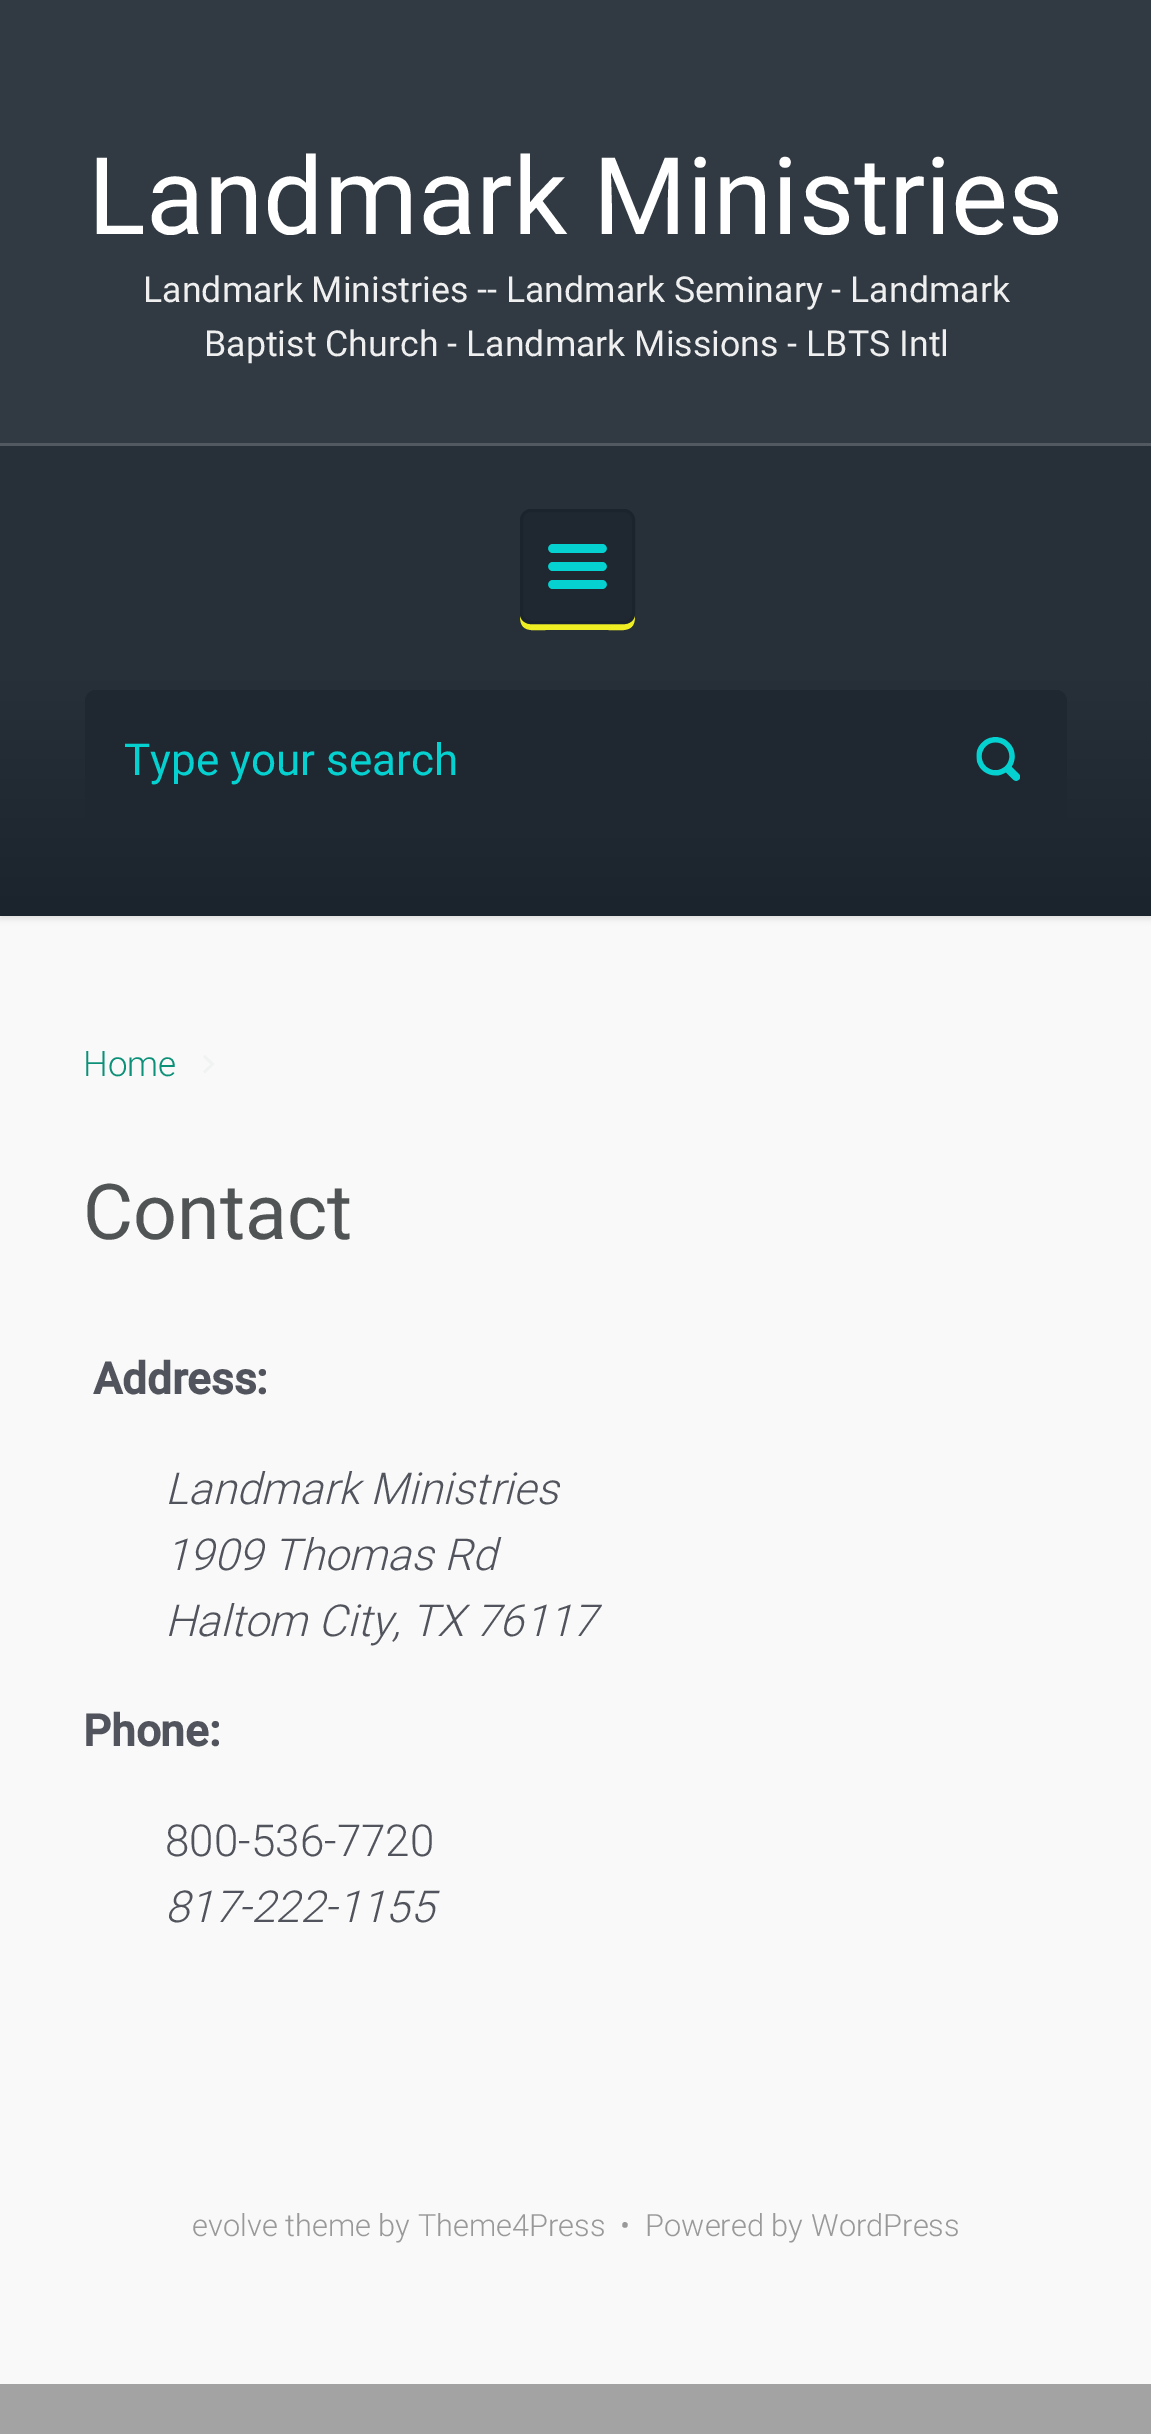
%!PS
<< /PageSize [1151 2434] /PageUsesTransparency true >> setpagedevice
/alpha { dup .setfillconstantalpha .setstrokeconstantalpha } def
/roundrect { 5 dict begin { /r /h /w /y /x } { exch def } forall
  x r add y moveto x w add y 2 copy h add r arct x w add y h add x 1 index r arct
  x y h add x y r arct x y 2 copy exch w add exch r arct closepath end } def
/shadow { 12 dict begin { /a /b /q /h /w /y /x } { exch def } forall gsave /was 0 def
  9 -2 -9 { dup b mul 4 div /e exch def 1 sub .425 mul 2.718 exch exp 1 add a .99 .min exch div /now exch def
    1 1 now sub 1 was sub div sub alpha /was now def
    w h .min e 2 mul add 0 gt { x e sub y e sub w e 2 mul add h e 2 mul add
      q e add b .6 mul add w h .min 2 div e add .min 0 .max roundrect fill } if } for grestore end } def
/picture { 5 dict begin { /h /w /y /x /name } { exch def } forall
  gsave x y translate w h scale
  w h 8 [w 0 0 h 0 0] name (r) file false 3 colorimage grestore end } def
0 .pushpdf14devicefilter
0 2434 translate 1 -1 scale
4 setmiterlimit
0.639 setgray
0 0 1151 2434 rectfill
0.976 setgray
0 916 1151 1468 rectfill
0.192 0.227 0.263 setrgbcolor
0 0 1151 443 rectfill
/Roboto-Regular [107.25 0 0 -107.25 0 0] selectfont
1 setgray
88 234 moveto (Landmark Ministries) show
/Roboto-Regular [35.75 0 0 -35.75 0 0] selectfont
0.937 setgray
143 302 moveto (Landmark Ministries -- Landmark Seminary - Landmark) show
204 356 moveto (Baptist Church - Landmark Missions - LBTS Intl) show
0 setgray
0 446 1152 473 0 3 0.1 shadow
gsave newpath 0 446 moveto 1151 446 lineto 1151 916 lineto 0 916 lineto closepath clip newpath
<< /ShadingType 2 /ColorSpace /DeviceRGB /Coords [576 443 576 916] /Extend [true true] /Function << /FunctionType 3 /Domain [0 1] /Functions [<< /FunctionType 2 /Domain [0 1] /C0 [0.153 0.188 0.224] /C1 [0.153 0.188 0.224] /N 1 >> << /FunctionType 2 /Domain [0 1] /C0 [0.153 0.188 0.224] /C1 [0.106 0.141 0.176] /N 1 >>] /Bounds [0.5] /Encode [0 1 0 1] >> >> shfill grestore
0.322 0.349 0.38 setrgbcolor
0 443 1151 3 rectfill
0.933 0.933 0.133 setrgbcolor
newpath 520 616 moveto 520 633 532 630 546 630 curveto 608 630 lineto 623 630 635 633 635 616 curveto 634 621 630 624 624 624 curveto 531 624 lineto 525 624 521 621 520 616 curveto closepath fill
0.122 0.157 0.192 setrgbcolor
521.5 510.5 112 112 9.5 roundrect gsave fill grestore
0.106 0.141 0.176 setrgbcolor
3 setlinewidth
stroke
(img1.rgb) 548 544 59 45 picture
0.122 0.157 0.192 setrgbcolor
85 690 982 138 11 roundrect fill
/Roboto-Regular [44 0 0 -44 0 0] selectfont
0.024 0.82 0.82 setrgbcolor
124 775 moveto (Type your search) show
(img2.rgb) 976 737 44 44 picture
/Roboto-Light [35 0 0 -35 0 0] selectfont
0.051 0.565 0.471 setrgbcolor
83 1076 moveto (Home) show
0.945 0.949 0.949 setrgbcolor
newpath 203 1057 moveto 205 1055 lineto 214.5 1064 lineto 212.5 1066 lineto closepath fill
newpath 203 1071.5 moveto 212.5 1062.5 lineto 214.5 1064 lineto 205 1073.5 lineto closepath fill
/Roboto-Regular [77 0 0 -77 0 0] selectfont
0.318 0.329 0.333 setrgbcolor
83 1239 moveto (Contact) show
/Roboto-Bold [44 0 0 -44 0 0] selectfont
0.318 0.329 0.361 setrgbcolor
93 1394 moveto (Address:) show
/Roboto-LightItalic [44 0 0 -44 0 0] selectfont
165 1504 moveto (Landmark Ministries) show
165 1570 moveto (1909 Thomas Rd) show
165 1636 moveto (Haltom City, TX 76117) show
/Roboto-Bold [44 0 0 -44 0 0] selectfont
83 1746 moveto (Phone:) show
/Roboto-Light [44 0 0 -44 0 0] selectfont
165 1856 moveto (800-536-7720) show
/Roboto-LightItalic [44 0 0 -44 0 0] selectfont
165 1922 moveto (817-222-1155) show
/Roboto-Light [30.75 0 0 -30.75 0 0] selectfont
0.6 setgray
192 2236 moveto (evolve theme by Theme4Press  •  Powered by) show
811 2236 moveto (WordPress) show
.poppdf14devicefilter showpage
